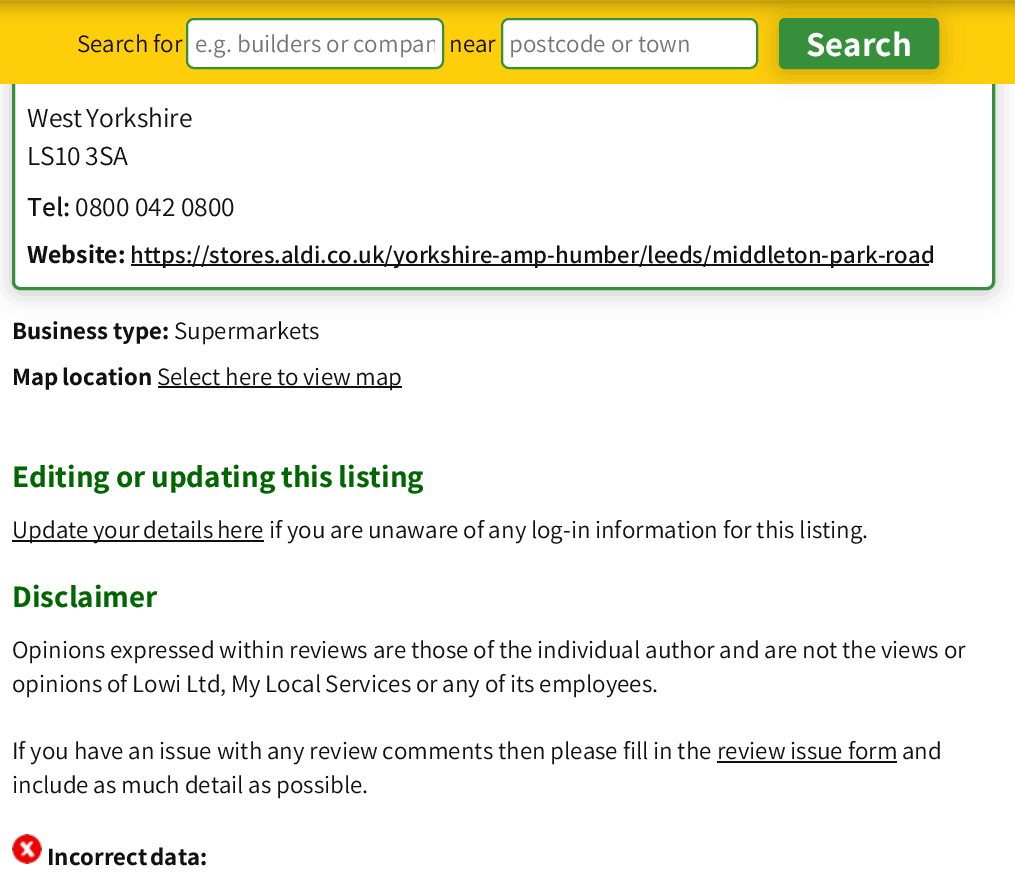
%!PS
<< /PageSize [1015 882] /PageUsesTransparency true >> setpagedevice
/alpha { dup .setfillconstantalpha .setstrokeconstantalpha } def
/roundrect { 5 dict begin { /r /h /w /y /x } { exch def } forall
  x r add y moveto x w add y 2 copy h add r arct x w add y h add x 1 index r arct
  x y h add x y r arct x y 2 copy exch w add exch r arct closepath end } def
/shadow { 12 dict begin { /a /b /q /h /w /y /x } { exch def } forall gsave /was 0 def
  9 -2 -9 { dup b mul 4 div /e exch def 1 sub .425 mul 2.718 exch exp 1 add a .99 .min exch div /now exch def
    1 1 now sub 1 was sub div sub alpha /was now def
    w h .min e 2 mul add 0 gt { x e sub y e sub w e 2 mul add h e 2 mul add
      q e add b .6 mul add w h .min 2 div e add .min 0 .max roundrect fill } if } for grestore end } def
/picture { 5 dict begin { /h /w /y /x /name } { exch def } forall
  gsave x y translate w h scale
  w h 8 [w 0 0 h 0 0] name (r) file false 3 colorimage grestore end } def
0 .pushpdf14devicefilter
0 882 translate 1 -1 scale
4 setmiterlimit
1 setgray
0 0 1015 882 rectfill
gsave
newpath 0 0 moveto 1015 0 lineto 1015 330 lineto 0 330 lineto closepath 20 -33 moveto 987 -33 lineto 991.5 -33 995 -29.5 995 -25 curveto 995 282 lineto 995 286.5 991.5 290 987 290 curveto 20 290 lineto 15.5 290 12 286.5 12 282 curveto 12 -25 lineto 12 -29.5 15.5 -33 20 -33 curveto closepath eoclip newpath
0 setgray
12 -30 983 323 8 12 0.22 shadow
grestore
0.212 0.565 0.231 setrgbcolor
3 setlinewidth
13.5 -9.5 980 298 6.5 roundrect stroke
(img1.rgb) 0 0 1015 84 picture
/Assistant-Regular [24.95 0 0 -24.95 0 0] selectfont
0.067 setgray
77 52 moveto (Search for) show
1 setgray
187 19 256 49 7 roundrect gsave fill grestore
0.212 0.565 0.231 setrgbcolor
2 setlinewidth
stroke
gsave
195 27 240 33 rectclip
0.459 setgray
195 52 moveto (e.g. builders or compan) show
grestore
0.067 setgray
449 52 moveto (near) show
1 setgray
502 19 255 49 7 roundrect gsave fill grestore
0.212 0.565 0.231 setrgbcolor
stroke
0.459 setgray
509 52 moveto (postcode or town) show
0 setgray
779 21 160 51 6 12 0.22 shadow
0.212 0.565 0.231 setrgbcolor
780 19 158 49 5 roundrect gsave fill grestore
stroke
/Assistant-Bold [35 0 0 -35 0 0] selectfont
1 setgray
806 56 moveto (Search) show
/Assistant-Regular [27.5 0 0 -27.5 0 0] selectfont
0.067 setgray
27 127 moveto -2 0 32 (West Yorkshire) widthshow
27 165 moveto -1 0 32 (LS10 3SA) widthshow
/Assistant-SemiBold [27.5 0 0 -27.5 0 0] selectfont
27 216 moveto (Tel:) show
/Assistant-Regular [27.5 0 0 -27.5 0 0] selectfont
75 216 moveto (0800 042 0800) show
/Assistant-Bold [26 0 0 -26 0 0] selectfont
27 263 moveto (Website:) show
131 264 798 2 rectfill
/Assistant-SemiBold [24.8 0 0 -24.8 0 0] selectfont
130 263 moveto (https://stores.aldi.co.uk/yorkshire-amp-humber/leeds/middleton-park-road) show
/Assistant-Bold [24.95 0 0 -24.95 0 0] selectfont
12 339 moveto (Business type:) show
/Assistant-Regular [24.95 0 0 -24.95 0 0] selectfont
174 339 moveto (Supermarkets) show
/Assistant-Bold [24.95 0 0 -24.95 0 0] selectfont
12 385 moveto -1 0 32 (Map location) widthshow
158 386 244 2 rectfill
/Assistant-Regular [24.95 0 0 -24.95 0 0] selectfont
157 385 moveto -0.25 0 32 (Select here to view map) widthshow
/Assistant-Bold [31.25 0 0 -31.25 0 0] selectfont
0 0.4 0 setrgbcolor
12 487 moveto -0.5 0 32 (Editing or updating this listing) widthshow
0.067 setgray
12 540 252 2 rectfill
/Assistant-Regular [24.95 0 0 -24.95 0 0] selectfont
12 538 moveto -1 0 32 (Update your details here) widthshow
269 538 moveto -0.25 0 32 (if you are unaware of any log-in information for this listing.) widthshow
/Assistant-Bold [31.25 0 0 -31.25 0 0] selectfont
0 0.4 0 setrgbcolor
12 607 moveto (Disclaimer) show
/Assistant-Regular [24.95 0 0 -24.95 0 0] selectfont
0.067 setgray
12 658 moveto -0.2 0 32 (Opinions expressed within reviews are those of the individual author and are not the views or) widthshow
12 692 moveto -0.25 0 32 (opinions of Lowi Ltd, My Local Services or any of its employees.) widthshow
12 759 moveto -0.1 0 32 (If you have an issue with any review comments then please fill in the) widthshow
717 759 moveto (review issue form) show
717 761 180 2 rectfill
902 759 moveto (and) show
12 793 moveto -0.25 0 32 (include as much detail as possible.) widthshow
(img2.rgb) 12 834 30 30 picture
/Assistant-Bold [24.95 0 0 -24.95 0 0] selectfont
47 865 moveto -2 0 32 (Incorrect data:) widthshow
.poppdf14devicefilter showpage
